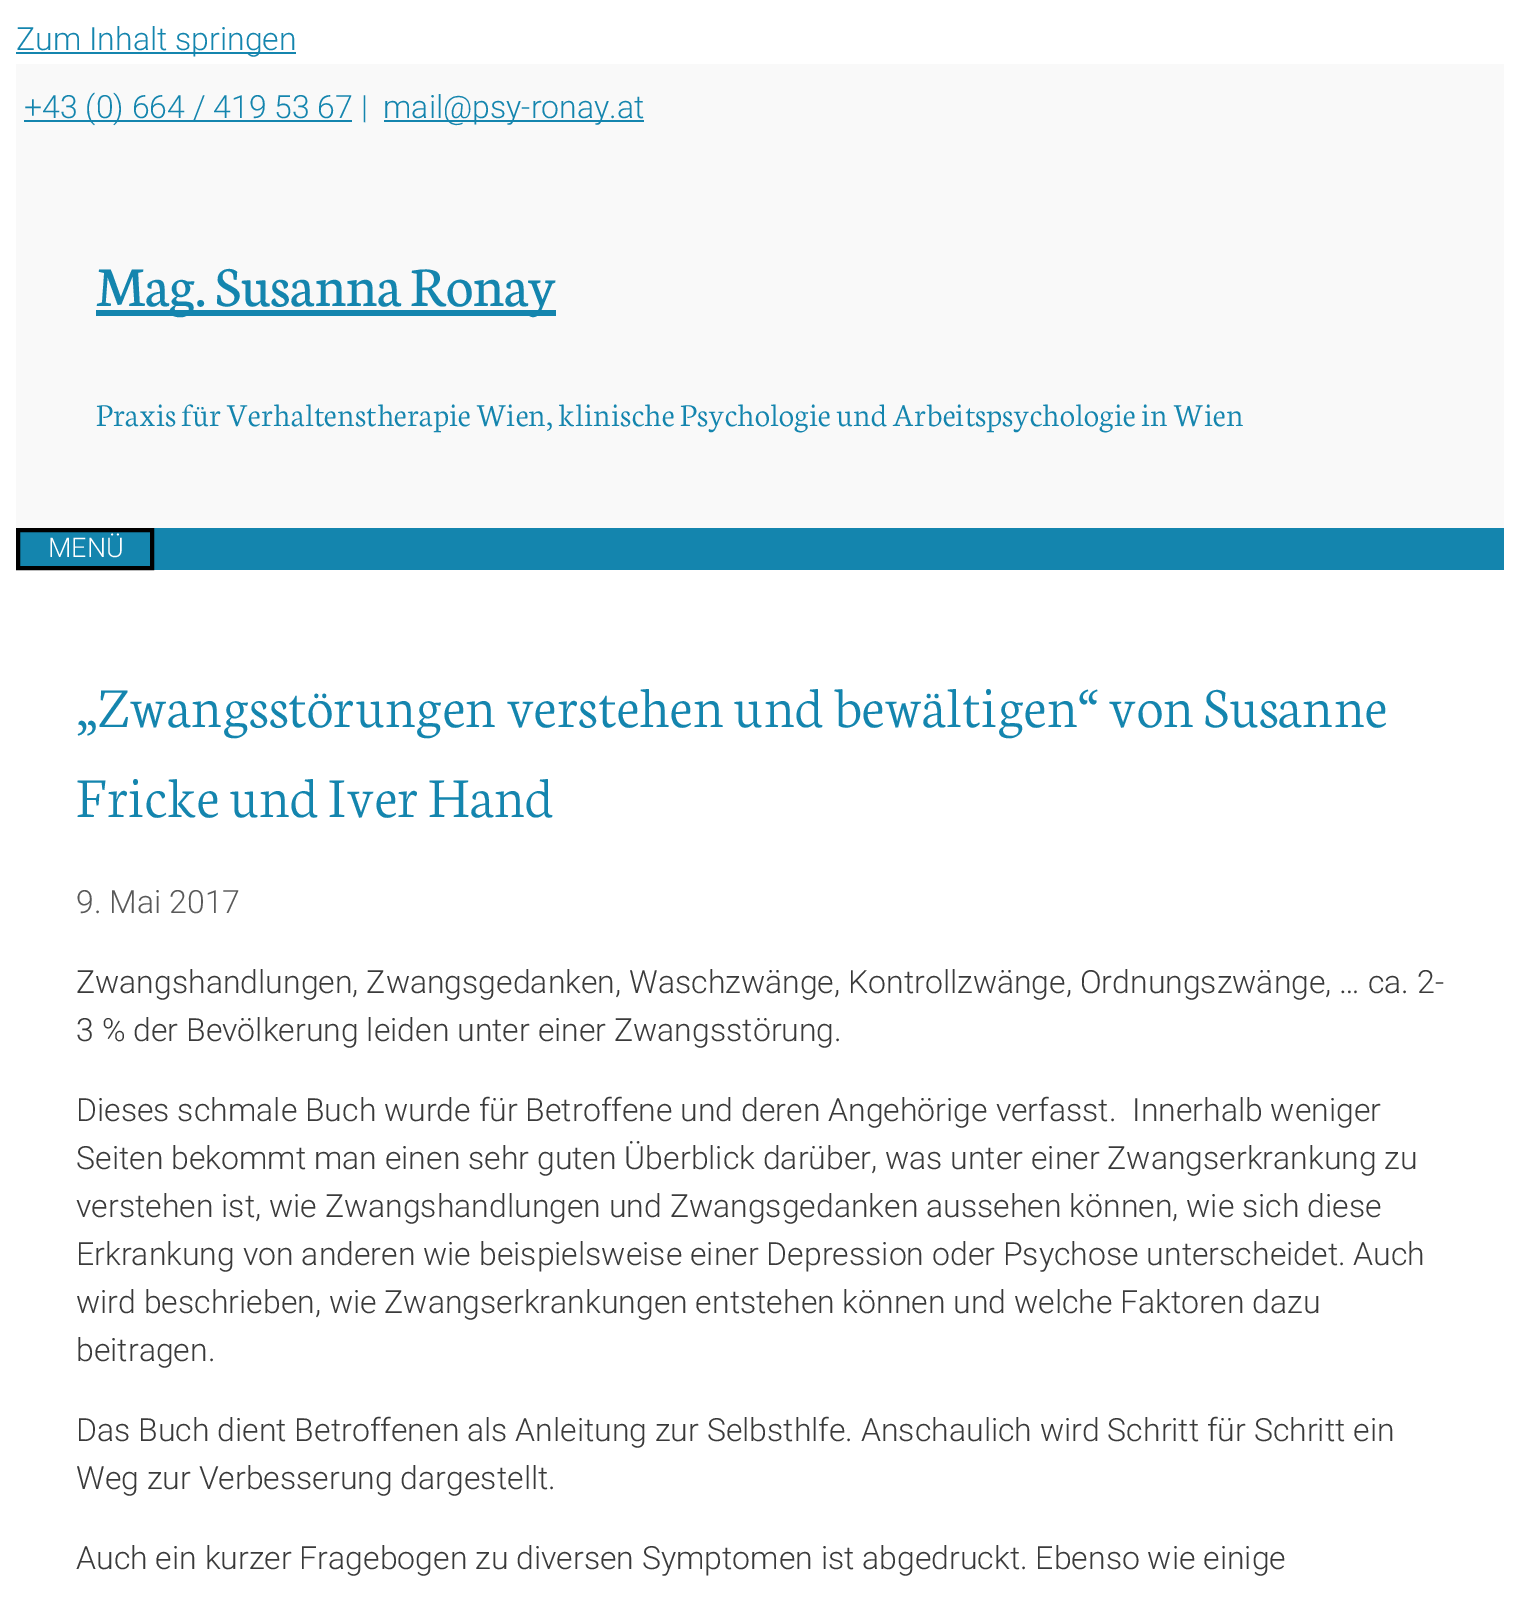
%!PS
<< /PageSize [1520 1609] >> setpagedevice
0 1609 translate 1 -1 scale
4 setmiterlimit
1 setgray
0 0 1520 1609 rectfill
0.078 0.522 0.682 setrgbcolor
16 52 280 2 rectfill
/Roboto-Light [32 0 0 -32 0 0] selectfont
16 50 moveto (Zum Inhalt springen) show
0.976 setgray
16 64 1488 464 rectfill
0.078 0.522 0.682 setrgbcolor
24 120 328 2 rectfill
24 118 moveto (+43 \(0\) 664 / 419 53 67 |) show
384 120 260 2 rectfill
383 118 moveto (mail@psy-ronay.at) show
96 310 460 6 rectfill
/Neuton-Regular [60 0 0 -60 0 0] selectfont
96 306 moveto (Mag. Susanna Ronay) show
/Neuton-Light [34 0 0 -34 0 0] selectfont
96 426 moveto (Praxis für Verhaltenstherapie Wien, klinische Psychologie und Arbeitspsychologie in Wien) show
20 528 1484 42 rectfill
0 setgray
4 setlinewidth
18 530 134 38 rectstroke
/Roboto-Light [27 0 0 -27 0 0] selectfont
1 setgray
48 557 moveto (MENÜ) show
/Neuton-Light [60 0 0 -60 0 0] selectfont
0.078 0.522 0.682 setrgbcolor
76 727 moveto („Zwangsstörungen verstehen und bewältigen“ von Susanne) show
76 817 moveto (Fricke und Iver Hand) show
/Roboto-Light [32 0 0 -32 0 0] selectfont
0.349 setgray
76 913 moveto (9. Mai 2017) show
0.227 setgray
76 993 moveto (Zwangshandlungen, Zwangsgedanken, Waschzwänge, Kontrollzwänge, Ordnungszwänge, … ca. 2-) show
76 1041 moveto (3 % der Bevölkerung leiden unter einer Zwangsstörung.) show
76 1121 moveto (Dieses schmale Buch wurde für Betroffene und deren Angehörige verfasst.  Innerhalb weniger) show
76 1169 moveto (Seiten bekommt man einen sehr guten Überblick darüber, was unter einer Zwangserkrankung zu) show
76 1217 moveto (verstehen ist, wie Zwangshandlungen und Zwangsgedanken aussehen können, wie sich diese) show
76 1265 moveto (Erkrankung von anderen wie beispielsweise einer Depression oder Psychose unterscheidet. Auch) show
76 1313 moveto (wird beschrieben, wie Zwangserkrankungen entstehen können und welche Faktoren dazu) show
76 1361 moveto (beitragen.) show
76 1441 moveto (Das Buch dient Betroffenen als Anleitung zur Selbsthlfe. Anschaulich wird Schritt für Schritt ein) show
76 1489 moveto (Weg zur Verbesserung dargestellt.) show
76 1569 moveto (Auch ein kurzer Fragebogen zu diversen Symptomen ist abgedruckt. Ebenso wie einige) show
showpage
